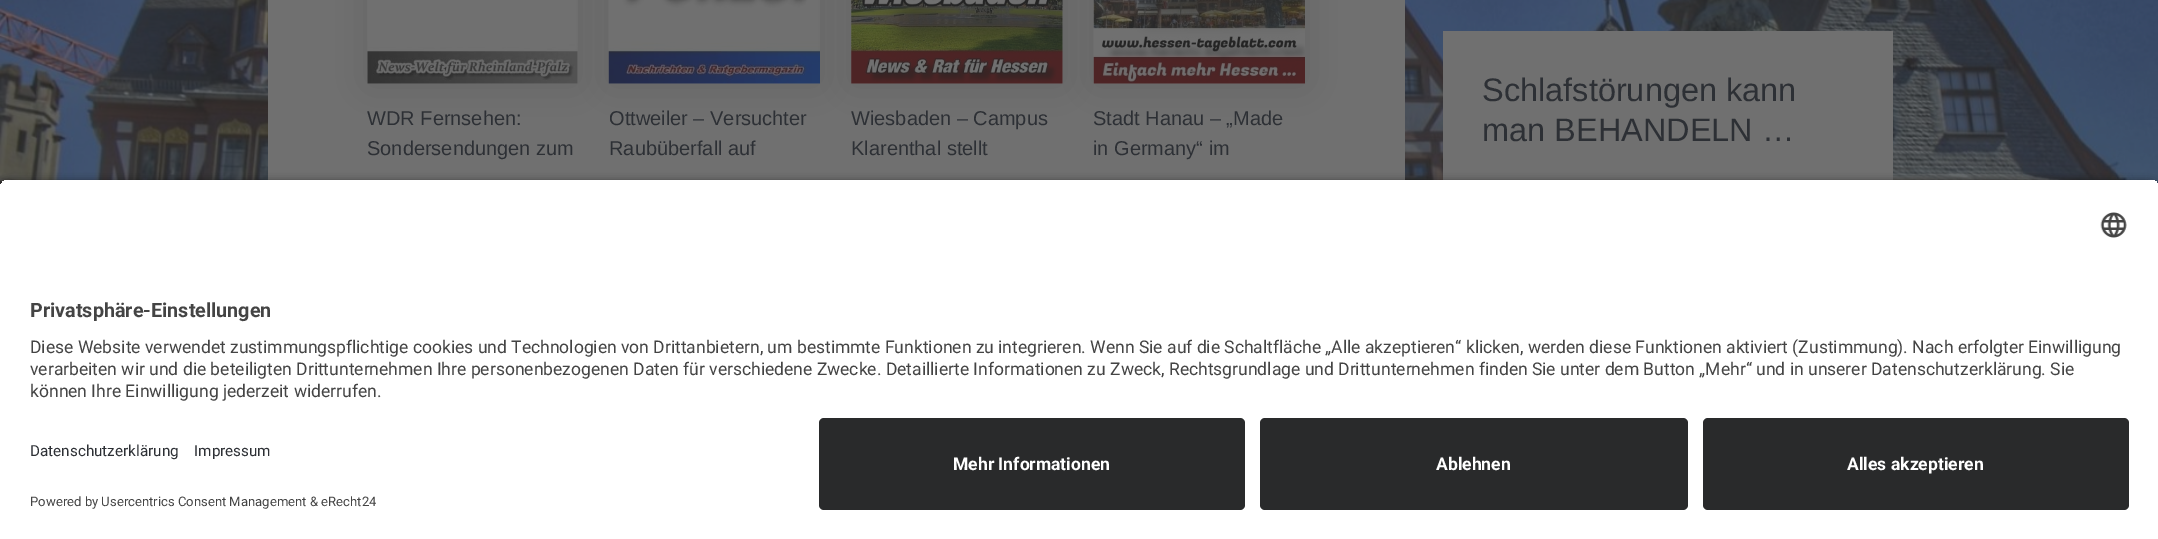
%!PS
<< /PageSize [2158 539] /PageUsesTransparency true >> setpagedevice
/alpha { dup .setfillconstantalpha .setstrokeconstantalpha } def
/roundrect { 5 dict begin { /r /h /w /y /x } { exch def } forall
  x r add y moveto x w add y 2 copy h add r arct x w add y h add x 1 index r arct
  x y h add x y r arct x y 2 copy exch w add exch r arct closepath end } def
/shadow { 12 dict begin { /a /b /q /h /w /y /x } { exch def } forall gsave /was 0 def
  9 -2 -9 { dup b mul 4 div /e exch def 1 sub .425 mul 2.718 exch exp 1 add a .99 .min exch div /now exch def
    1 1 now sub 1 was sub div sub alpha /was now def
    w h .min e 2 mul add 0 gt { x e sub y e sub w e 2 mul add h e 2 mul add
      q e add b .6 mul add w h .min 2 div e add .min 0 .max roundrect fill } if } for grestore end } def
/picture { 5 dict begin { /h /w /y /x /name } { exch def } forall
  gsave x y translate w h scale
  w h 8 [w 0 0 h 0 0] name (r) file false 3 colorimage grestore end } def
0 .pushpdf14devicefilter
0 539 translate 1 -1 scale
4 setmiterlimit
1 setgray
0 0 2158 539 rectfill
(img1.rgb) 0 0 2158 189 picture
0.439 setgray
268 0 1137 180 rectfill
0.141 setgray
368 -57 210 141 0 19 0.15 shadow
(img2.rgb) 367 0 211 84 picture
/LiberationSans-Regular [20 0 0 -20 0 0] selectfont
0.176 0.188 0.208 setrgbcolor
367 125 moveto (WDR Fernsehen:) show
367 155 moveto (Sondersendungen zum) show
0.141 setgray
609 -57 211 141 0 19 0.15 shadow
(img3.rgb) 608 0 212 84 picture
0.176 0.188 0.208 setrgbcolor
609 125 moveto (Ottweiler – Versuchter) show
609 155 moveto (Raubüberfall auf) show
0.141 setgray
851 -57 212 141 0 19 0.15 shadow
(img4.rgb) 851 0 212 84 picture
0.176 0.188 0.208 setrgbcolor
851 125 moveto (Wiesbaden – Campus) show
851 155 moveto (Klarenthal stellt) show
0.141 setgray
1094 -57 211 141 0 19 0.15 shadow
(img5.rgb) 1093 0 212 84 picture
0.176 0.188 0.208 setrgbcolor
1093 125 moveto (Stadt Hanau – „Made) show
1093 155 moveto (in Germany“ im) show
0.439 setgray
1443 31 450 149 rectfill
/LiberationSans-Regular [32.5 0 0 -32.5 0 0] selectfont
0.176 0.188 0.208 setrgbcolor
1482 101 moveto (Schlafstörungen kann) show
1482 141 moveto (man BEHANDELN …) show
0 setgray
0 183 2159 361 10 4.5 0.8 shadow
gsave
newpath 10 179 moveto 2149 179 lineto 2154.5 179 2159 183.5 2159 189 curveto 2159 408 lineto 0 408 lineto 0 189 lineto 0 183.5 4.5 179 10 179 curveto closepath clip newpath
1 setgray
0 180 2158 228 rectfill
grestore
(img6.rgb) 2100 212 27 26 picture
/Roboto-Bold [19.75 0 0 -19.75 0 0] selectfont
0.267 setgray
30 317 moveto (Privatsphäre-Einstellungen) show
/Roboto-Regular [17.5 0 0 -17.5 0 0] selectfont
30 353 moveto (Diese Website verwendet zustimmungspflichtige cookies und Technologien von Drittanbietern, um bestimmte Funktionen zu integrieren. Wenn Sie auf die Schaltfläche „Alle akzeptieren“ klicken, werden diese Funktionen aktiviert \(Zustimmung\). Nach erfolgter Einwilligung) show
30 375 moveto (verarbeiten wir und die beteiligten Drittunternehmen Ihre personenbezogenen Daten für verschiedene Zwecke. Detaillierte Informationen zu Zweck, Rechtsgrundlage und Drittunternehmen finden Sie unter dem Button „Mehr“ und in unserer Datenschutzerklärung. Sie) show
30 397 moveto (können Ihre Einwilligung jederzeit widerrufen.) show
1 setgray
0 408 2158 131 rectfill
/Roboto-Regular [15.25 0 0 -15.25 0 0] selectfont
0.176 0.188 0.208 setrgbcolor
30 456 moveto (Datenschutzerklärung) show
194 456 moveto (Impressum) show
/Roboto-Regular [13.1 0 0 -13.1 0 0] selectfont
0.267 setgray
30 506 moveto (Powered by Usercentrics Consent Management & eRecht24) show
0.161 0.165 0.169 setrgbcolor
819 418 426 92 5 roundrect fill
/Roboto-Bold [17.5 0 0 -17.5 0 0] selectfont
1 setgray
953 470 moveto (Mehr Informationen) show
0.161 0.165 0.169 setrgbcolor
1260 418 428 92 5 roundrect fill
1 setgray
1436 470 moveto (Ablehnen) show
0.161 0.165 0.169 setrgbcolor
1703 418 426 92 5 roundrect fill
1 setgray
1847 470 moveto (Alles akzeptieren) show
.poppdf14devicefilter showpage
